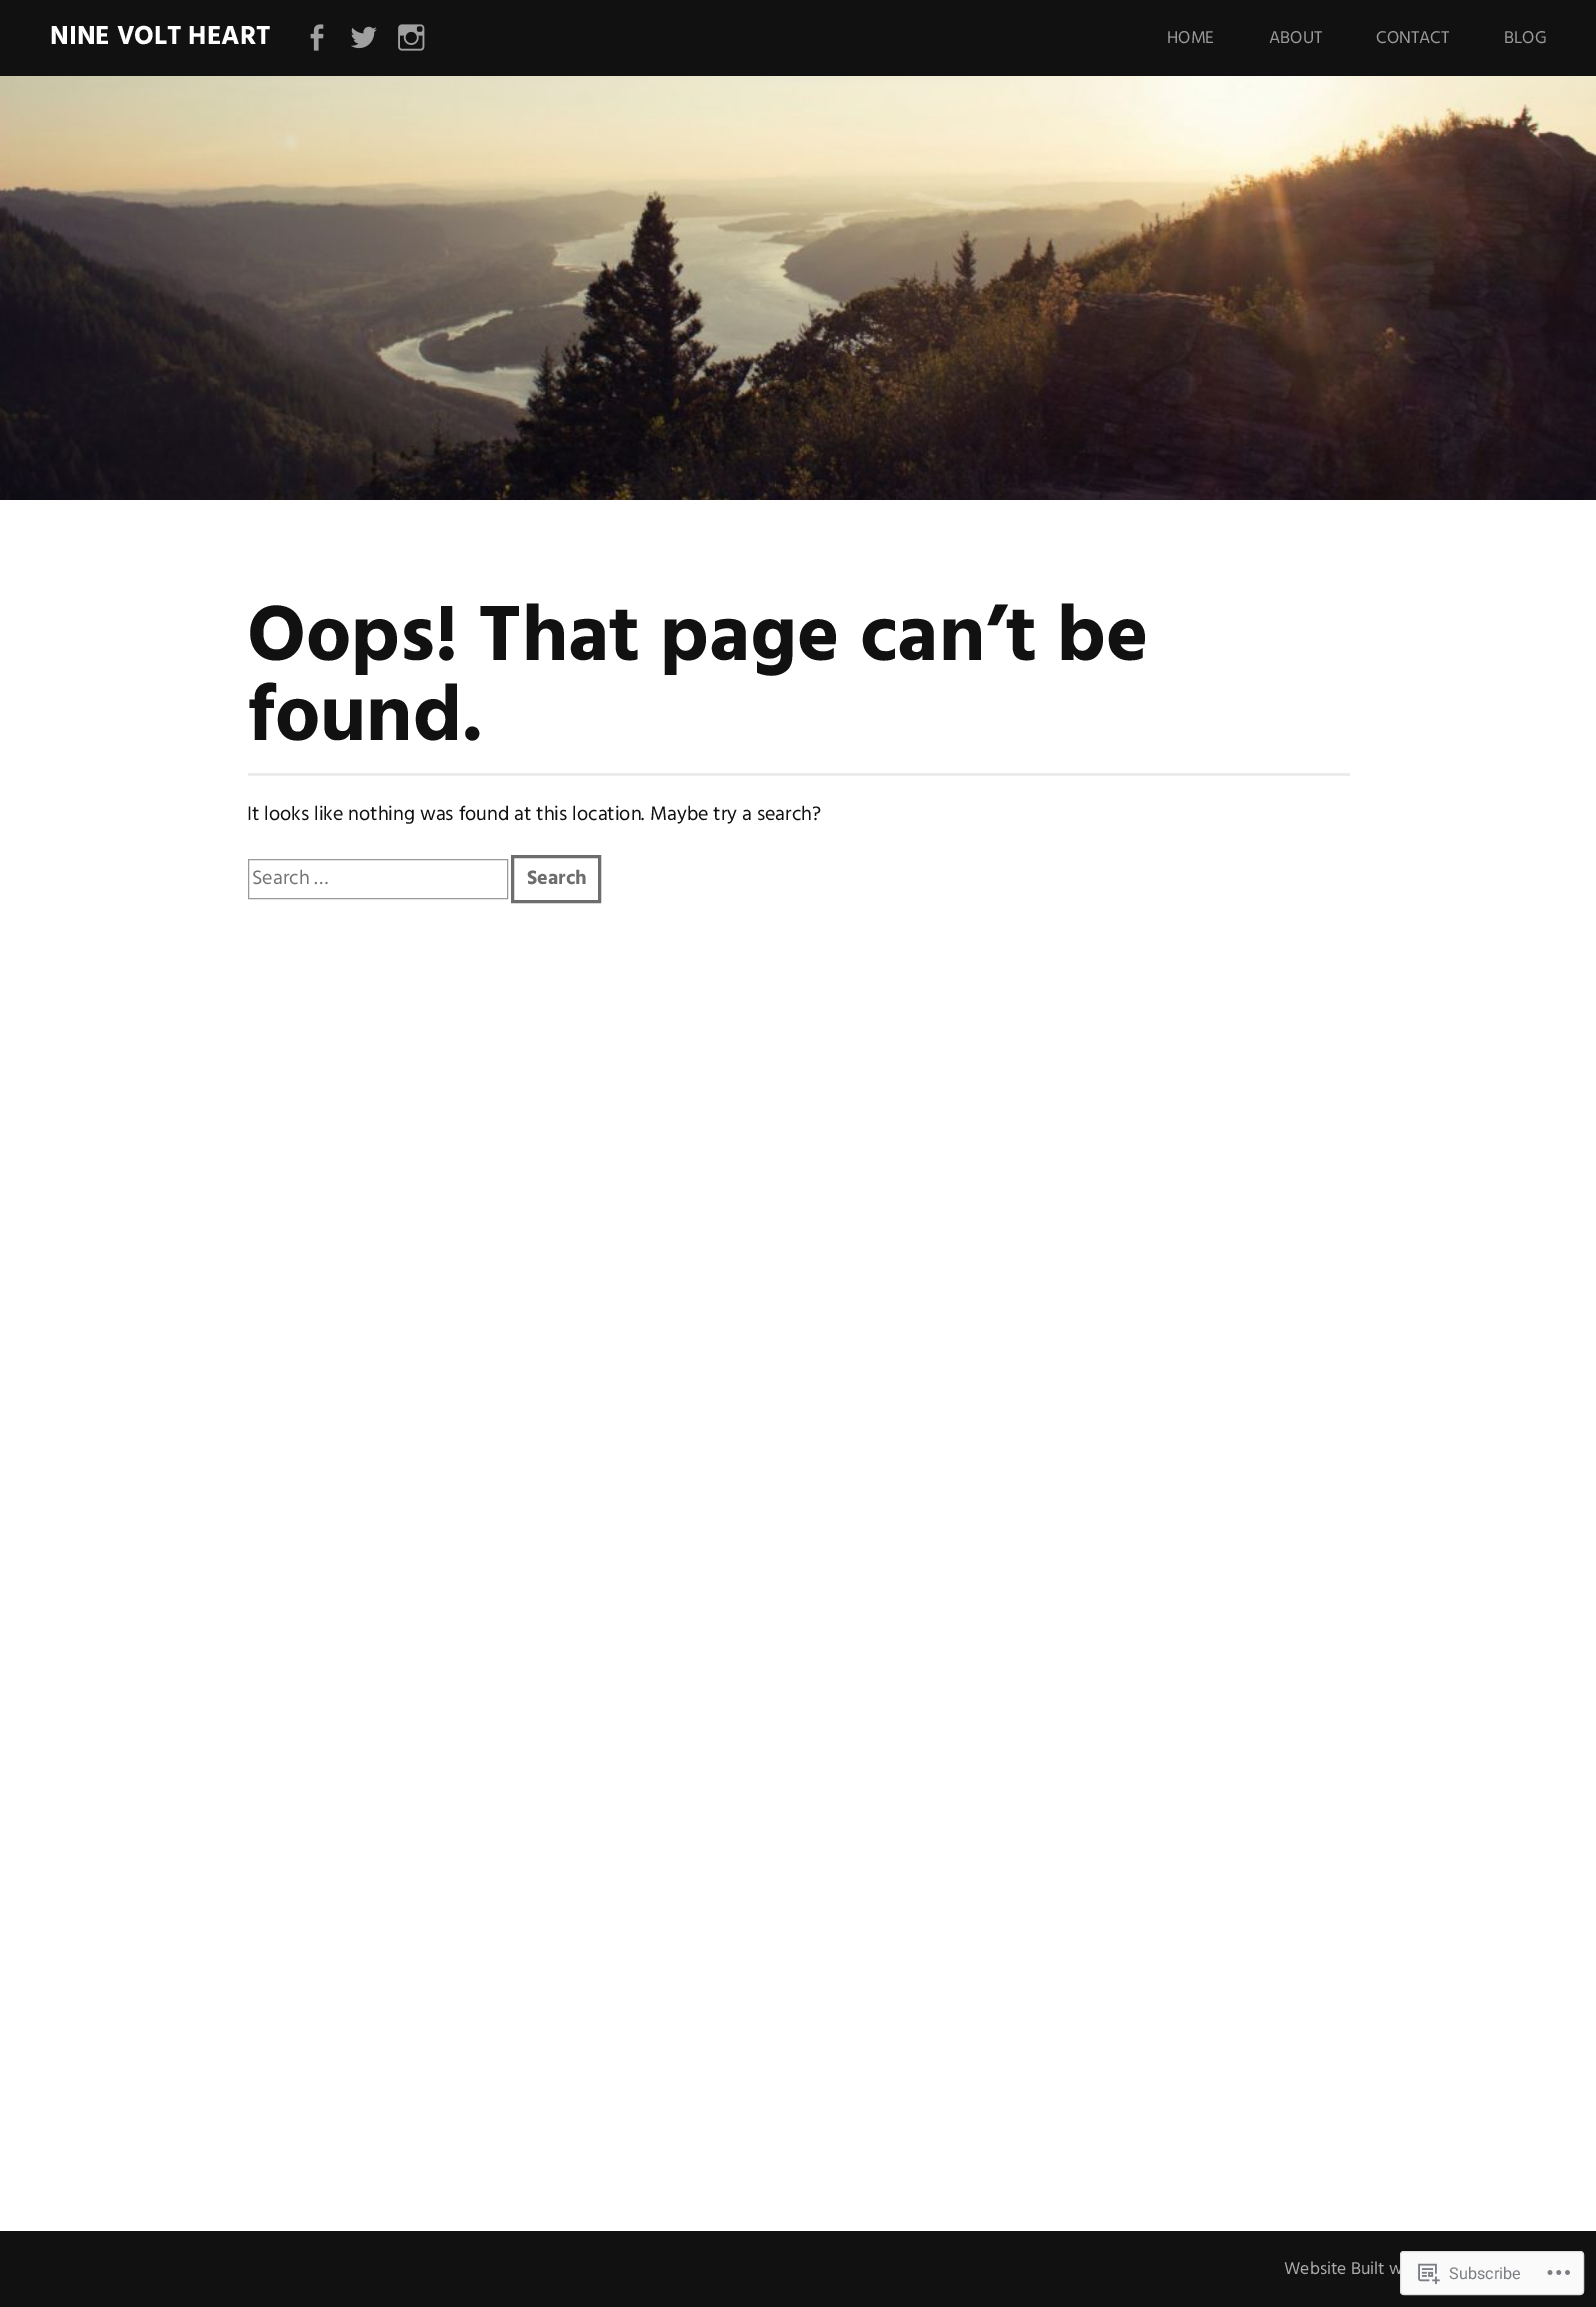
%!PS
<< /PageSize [1596 2307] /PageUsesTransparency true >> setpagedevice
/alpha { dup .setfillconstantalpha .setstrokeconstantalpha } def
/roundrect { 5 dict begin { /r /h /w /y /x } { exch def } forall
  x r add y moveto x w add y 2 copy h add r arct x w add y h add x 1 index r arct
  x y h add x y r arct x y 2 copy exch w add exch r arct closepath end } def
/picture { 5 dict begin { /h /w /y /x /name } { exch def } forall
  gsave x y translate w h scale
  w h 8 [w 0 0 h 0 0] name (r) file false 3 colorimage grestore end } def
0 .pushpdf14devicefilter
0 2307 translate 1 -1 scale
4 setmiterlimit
1 setgray
0 0 1596 2307 rectfill
0.067 setgray
0 0 1596 76 rectfill
/Hind-Bold [26.75 0 0 -26.75 0 0] selectfont
1 setgray
50 44 moveto (NINE VOLT HEART) show
(img1.rgb) 310 24 14 27 picture
(img2.rgb) 351 26 26 23 picture
(img3.rgb) 398 24 27 27 picture
/Hind-Regular [17.5 0 0 -17.5 0 0] selectfont
0.6 setgray
1167 43 moveto (HOME) show
1269 43 moveto (ABOUT) show
1376 43 moveto (CONTACT) show
1504 43 moveto (BLOG) show
(img4.rgb) 0 76 1596 424 picture
0.922 setgray
248 773 1102 3 rectfill
/Hind-Bold [80 0 0 -80 0 0] selectfont
0.067 setgray
247 660 moveto (Oops! That page can’t be) show
247 740 moveto (found.) show
/Hind-Regular [20 0 0 -20 0 0] selectfont
247 820 moveto (It looks like nothing was found at this location. Maybe try a search?) show
0.6 setgray
248.5 859.5 259 39 rectstroke
0.459 setgray
252 884 moveto (Search …) show
0.427 setgray
3 setlinewidth
512.5 856.5 87 45 rectstroke
/Hind-Bold [20 0 0 -20 0 0] selectfont
527 884 moveto (Search) show
0.067 setgray
0 2231 1596 76 rectfill
/Hind-Regular [17.5 0 0 -17.5 0 0] selectfont
0.667 setgray
1284 2274 moveto (Website Built w) show
0.98 alpha
1 setgray
1400 2251 184 44 4 roundrect fill
0.863 0.863 0.871 setrgbcolor
1 setlinewidth
1400.5 2251.5 183 43 3.5 roundrect stroke
1 alpha
(img5.rgb) 1418 2263 22 22 picture
/Roboto-Regular [16.25 0 0 -16.25 0 0] selectfont
0.482 0.498 0.518 setrgbcolor
1449 2279 moveto (Subscribe) show
(img6.rgb) 1547 2270 23 5 picture
.poppdf14devicefilter showpage
